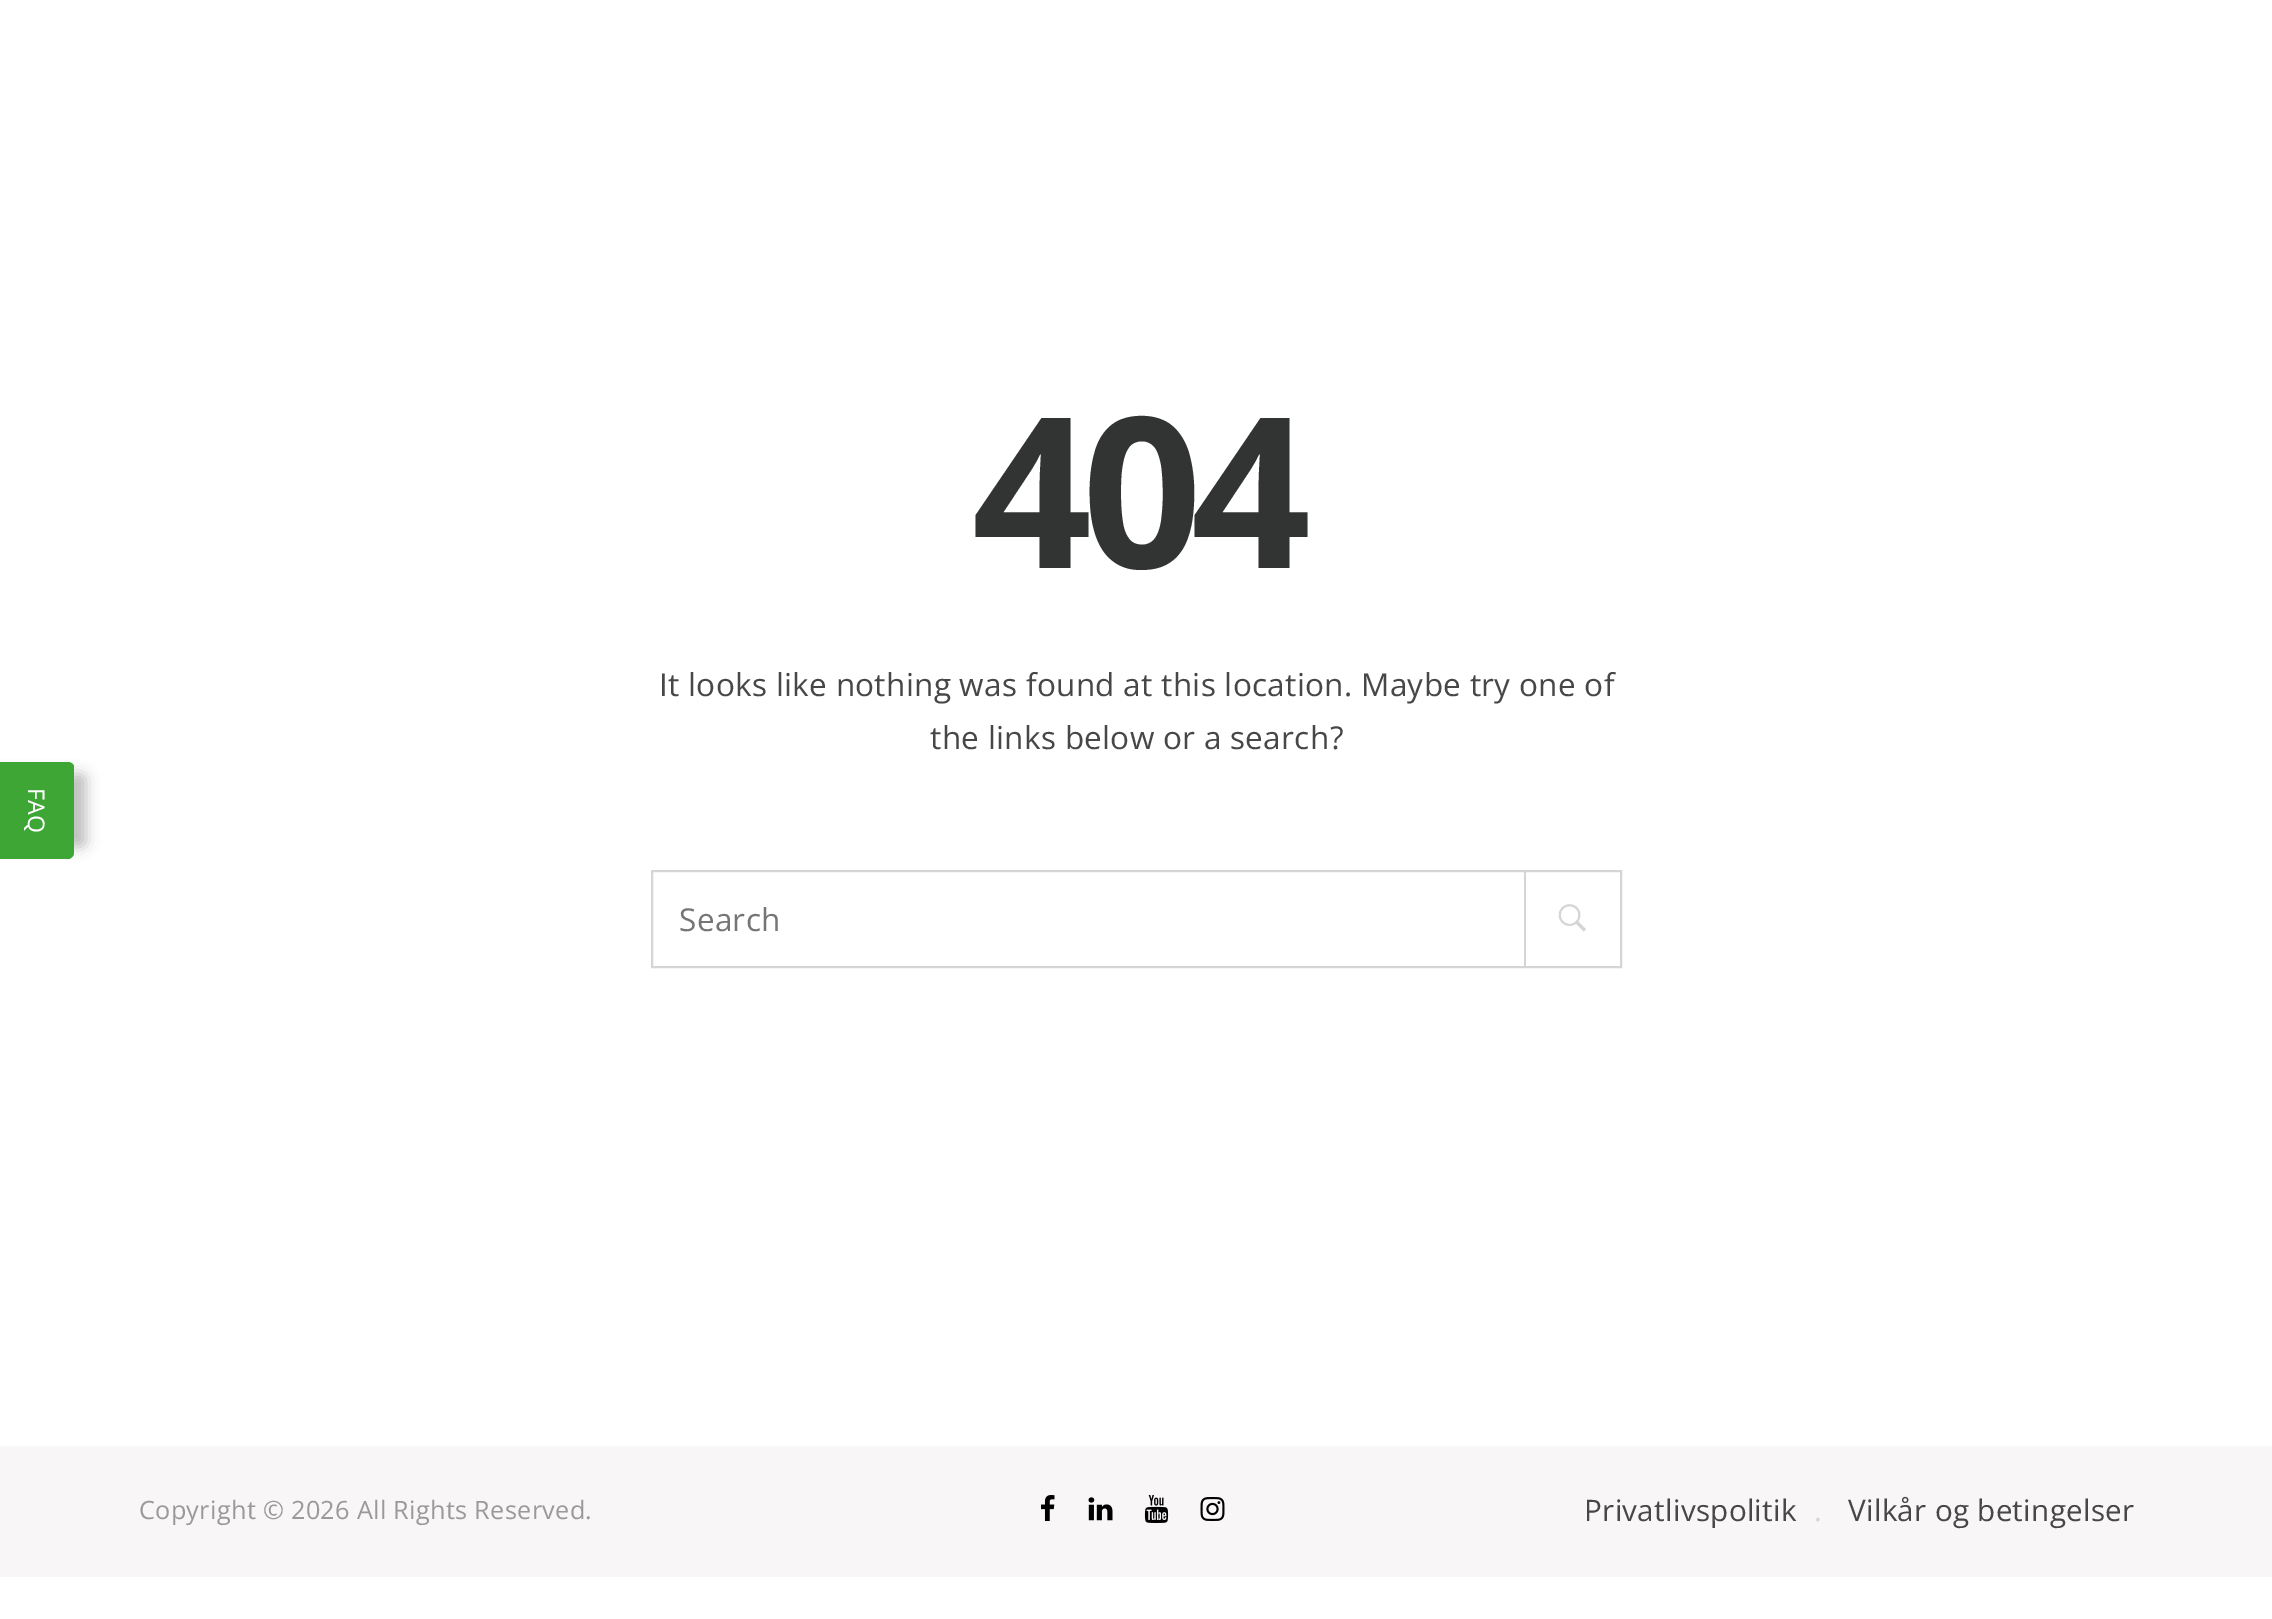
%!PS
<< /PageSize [2272 1619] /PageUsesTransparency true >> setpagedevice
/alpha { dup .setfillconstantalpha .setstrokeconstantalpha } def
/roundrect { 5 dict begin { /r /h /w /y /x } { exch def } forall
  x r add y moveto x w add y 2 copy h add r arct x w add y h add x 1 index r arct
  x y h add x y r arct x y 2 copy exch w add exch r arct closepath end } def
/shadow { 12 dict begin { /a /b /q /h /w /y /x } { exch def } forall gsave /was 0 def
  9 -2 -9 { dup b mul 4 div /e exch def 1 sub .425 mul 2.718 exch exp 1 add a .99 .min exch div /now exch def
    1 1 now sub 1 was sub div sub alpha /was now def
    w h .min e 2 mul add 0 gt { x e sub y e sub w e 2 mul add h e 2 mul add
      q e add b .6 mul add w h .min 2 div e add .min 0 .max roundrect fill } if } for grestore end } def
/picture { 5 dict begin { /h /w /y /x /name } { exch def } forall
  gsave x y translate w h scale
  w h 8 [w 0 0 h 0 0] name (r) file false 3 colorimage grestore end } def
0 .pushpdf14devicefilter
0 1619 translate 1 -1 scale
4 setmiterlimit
1 setgray
0 0 2272 1619 rectfill
0 setgray
-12 774 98 73 5 7 0.25 shadow
0.243 0.651 0.208 setrgbcolor
newpath 74 767 moveto 74 853 lineto 74 856 71 859 68 859 curveto 0 859 lineto 0 762 lineto 68 762 lineto 71 762 74 764 74 767 curveto closepath fill
/NotoSans-Regular [23 0 0 -23 0 0] selectfont
1 setgray
gsave 28 788 translate 90 rotate 0 0 moveto (FAQ) show grestore
/OpenSans-Bold [210 0 0 -210 0 0] selectfont
0.196 0.204 0.204 setrgbcolor
972 568 moveto -10.5 0 (404) ashow
/OpenSans-Regular [31.5 0 0 -31.5 0 0] selectfont
0.278 setgray
659 696 moveto 0.32 0 (It looks like nothing was found at this location. Maybe try one of) ashow
930 749 moveto 0.32 0 (the links below or a search?) ashow
0.835 setgray
2 setlinewidth
652 871 969 96 rectstroke
0.459 setgray
679 931 moveto 0.32 0 (Search) ashow
(img1.rgb) 1558 904 28 28 picture
0.835 setgray
1524 872 2 94 rectfill
0.973 0.965 0.965 setrgbcolor
0 1446 2272 131 rectfill
/OpenSans-Regular [25.25 0 0 -25.25 0 0] selectfont
0.6 setgray
139 1519 moveto 0.32 0 (Copyright © 2026 All Rights Reserved.) ashow
(img2.rgb) 1041 1495 14 26 picture
(img3.rgb) 1088 1497 25 24 picture
(img4.rgb) 1144 1495 25 28 picture
(img5.rgb) 1200 1497 25 24 picture
/OpenSans-Regular [29.6 0 0 -29.6 0 0] selectfont
0.278 setgray
1584 1521 moveto 0.32 0 (Privatlivspolitik) ashow
0.835 setgray
1814 1521 moveto 0.32 0 (.) ashow
0.278 setgray
1848 1521 moveto 0.32 0 (Vilkår og betingelser) ashow
.poppdf14devicefilter showpage
